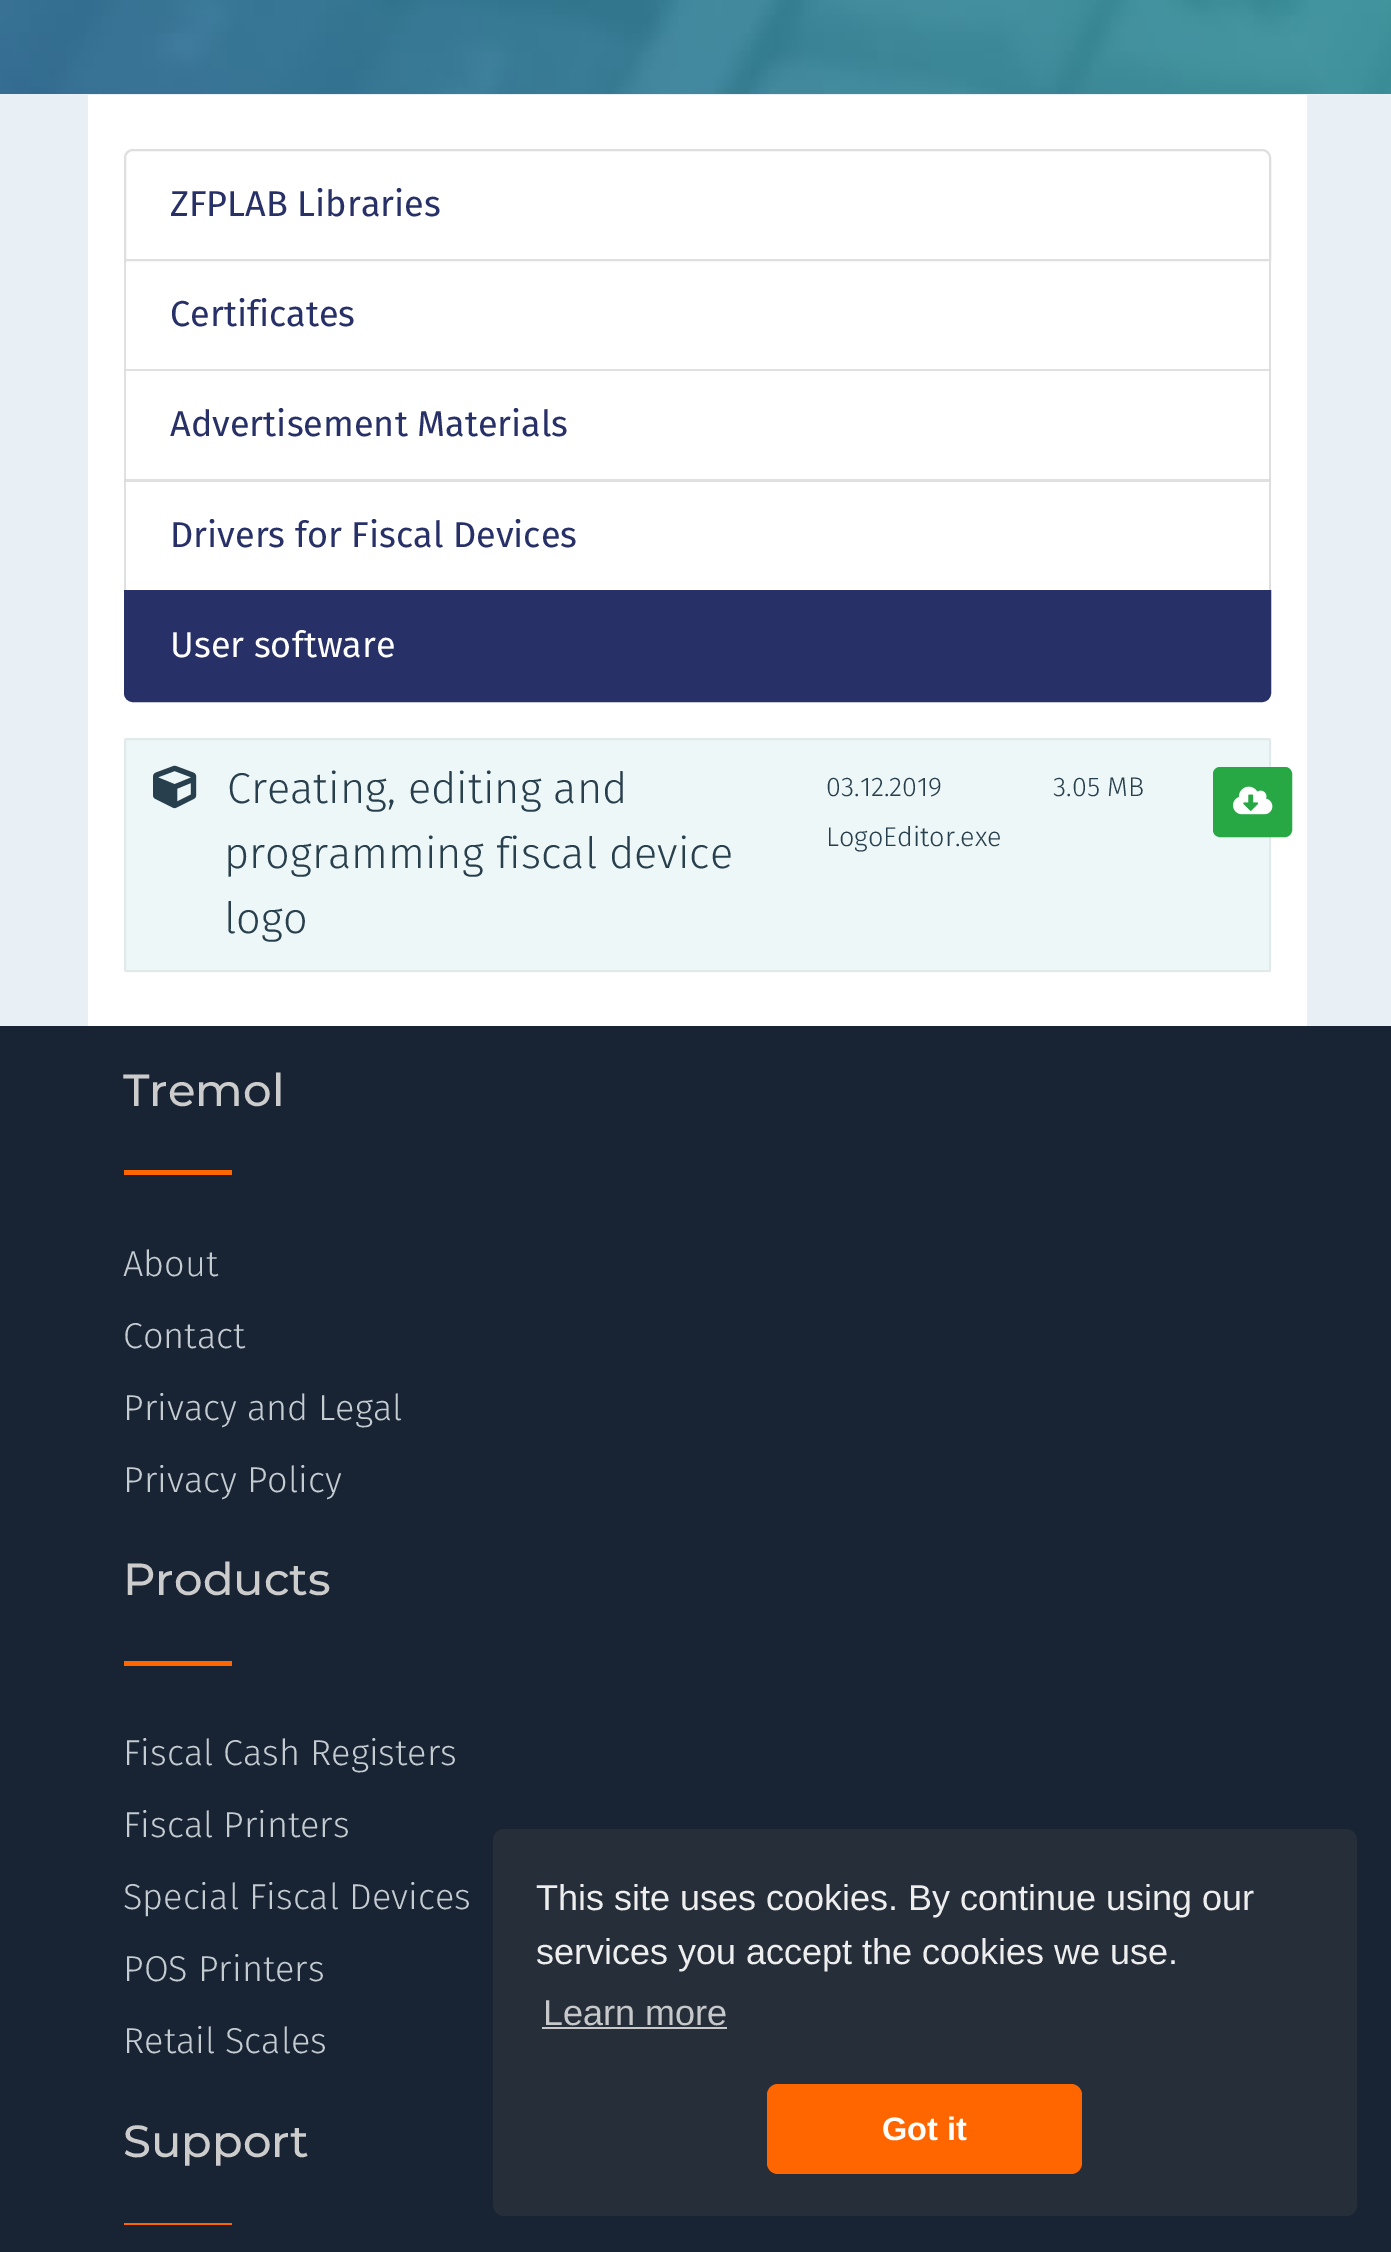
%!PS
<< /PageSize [1391 2252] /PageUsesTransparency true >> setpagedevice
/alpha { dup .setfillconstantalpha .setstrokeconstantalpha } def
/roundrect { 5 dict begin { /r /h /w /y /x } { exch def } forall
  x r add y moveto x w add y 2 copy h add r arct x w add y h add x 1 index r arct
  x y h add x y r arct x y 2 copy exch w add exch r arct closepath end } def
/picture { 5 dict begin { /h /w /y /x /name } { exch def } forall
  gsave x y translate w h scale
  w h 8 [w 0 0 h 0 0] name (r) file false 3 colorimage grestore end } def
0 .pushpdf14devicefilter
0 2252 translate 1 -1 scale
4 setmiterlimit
0.914 0.941 0.961 setrgbcolor
0 0 1391 2252 rectfill
(img1.rgb) 0 0 1391 94 picture
1 setgray
88 95 1219 931 rectfill
0.875 setgray
2 setlinewidth
newpath 133 150 moveto 1262 150 lineto 1266.5 150 1270 153.5 1270 158 curveto 1270 260 lineto 125 260 lineto 125 158 lineto 125 153.5 128.5 150 133 150 curveto closepath stroke
/FiraSans-Regular [36 0 0 -36 0 0] selectfont
0.153 0.188 0.404 setrgbcolor
170 216 moveto (ZFPLAB Libraries) show
0.875 setgray
newpath 1271 261 moveto 1271 371 lineto 1269 369 lineto 1269 261 lineto closepath fill
0.12 alpha
0 setgray
newpath 1271 371 moveto 124 371 lineto 126 369 lineto 1269 369 lineto closepath fill
newpath 124 371 moveto 124 261 lineto 126 261 lineto 126 369 lineto closepath fill
1 alpha
0.153 0.188 0.404 setrgbcolor
170 326 moveto (Certificates) show
0.875 setgray
newpath 1271 371 moveto 1271 482 lineto 1269 479 lineto 1269 371 lineto closepath fill
0.12 alpha
0 setgray
newpath 1271 482 moveto 124 482 lineto 126 479 lineto 1269 479 lineto closepath fill
newpath 124 482 moveto 124 371 lineto 126 371 lineto 126 479 lineto closepath fill
1 alpha
0.153 0.188 0.404 setrgbcolor
170 436 moveto (Advertisement Materials) show
0.875 setgray
newpath 1271 482 moveto 1271 592 lineto 1269 590 lineto 1269 482 lineto closepath fill
0.12 alpha
0 setgray
newpath 124 592 moveto 124 482 lineto 126 482 lineto 126 590 lineto closepath fill
1 alpha
0.153 0.188 0.404 setrgbcolor
170 547 moveto (Drivers for Fiscal Devices) show
newpath 125 591 moveto 1270 591 lineto 1270 693 lineto 1270 697.5 1266.5 701 1262 701 curveto 133 701 lineto 128.5 701 125 697.5 125 693 curveto closepath gsave fill grestore
stroke
1 setgray
170 657 moveto (User software) show
0.929 0.969 0.969 setrgbcolor
124 738 1147 234 3 roundrect fill
0.05 alpha
0 setgray
125 739 1145 232 rectstroke
1 alpha
(img2.rgb) 153 765 44 44 picture
/FiraSans-Light [43.25 0 0 -43.25 0 0] selectfont
0.157 0.247 0.302 setrgbcolor
227 803 moveto (Creating, editing and) show
224 868 moveto (programming fiscal device) show
224 933 moveto (logo) show
/FiraSans-Light [27 0 0 -27 0 0] selectfont
826 796 moveto (03.12.2019) show
1053 796 moveto (3.05 MB) show
826 846 moveto (LogoEditor.exe) show
0.157 0.655 0.271 setrgbcolor
1214 768 77 68 6 roundrect gsave fill grestore
stroke
(img3.rgb) 1233 786 40 29 picture
0.094 0.137 0.2 setrgbcolor
0 1026 1391 1226 rectfill
/Montserrat-Medium [45 0 0 -45 0 0] selectfont
0.8 setgray
123 1106 moveto (Tremol) show
1 0.4 0 setrgbcolor
124 1170 108 5 rectfill
/FiraSans-Light [36 0 0 -36 0 0] selectfont
0.769 0.8 0.824 setrgbcolor
123 1276 moveto (About) show
123 1348 moveto (Contact) show
123 1420 moveto (Privacy and Legal) show
123 1492 moveto (Privacy Policy) show
/Montserrat-Medium [45 0 0 -45 0 0] selectfont
0.8 setgray
123 1595 moveto (Products) show
1 0.4 0 setrgbcolor
124 1661 108 5 rectfill
/FiraSans-Light [36 0 0 -36 0 0] selectfont
0.769 0.8 0.824 setrgbcolor
123 1765 moveto (Fiscal Cash Registers) show
123 1837 moveto (Fiscal Printers) show
123 1909 moveto (Special Fiscal Devices) show
123 1981 moveto (POS Printers) show
123 2053 moveto (Retail Scales) show
/Montserrat-Medium [45 0 0 -45 0 0] selectfont
0.8 setgray
123 2157 moveto (Support) show
1 0.4 0 setrgbcolor
124 2223 108 2 rectfill
0.145 0.18 0.224 setrgbcolor
493 1829 864 387 11 roundrect fill
/LiberationSans-Regular [36 0 0 -36 0 0] selectfont
0.933 setgray
536 1910 moveto (This site uses cookies. By continue using our) show
536 1964 moveto (services you accept the cookies we use.) show
0.776 0.784 0.792 setrgbcolor
543 2025 moveto (Learn more) show
542 2027 185 2 rectfill
1 0.4 0 setrgbcolor
767 2084 315 90 11 roundrect fill
/LiberationSans-Bold [32.5 0 0 -32.5 0 0] selectfont
1 setgray
882 2140 moveto (Got it) show
.poppdf14devicefilter showpage
